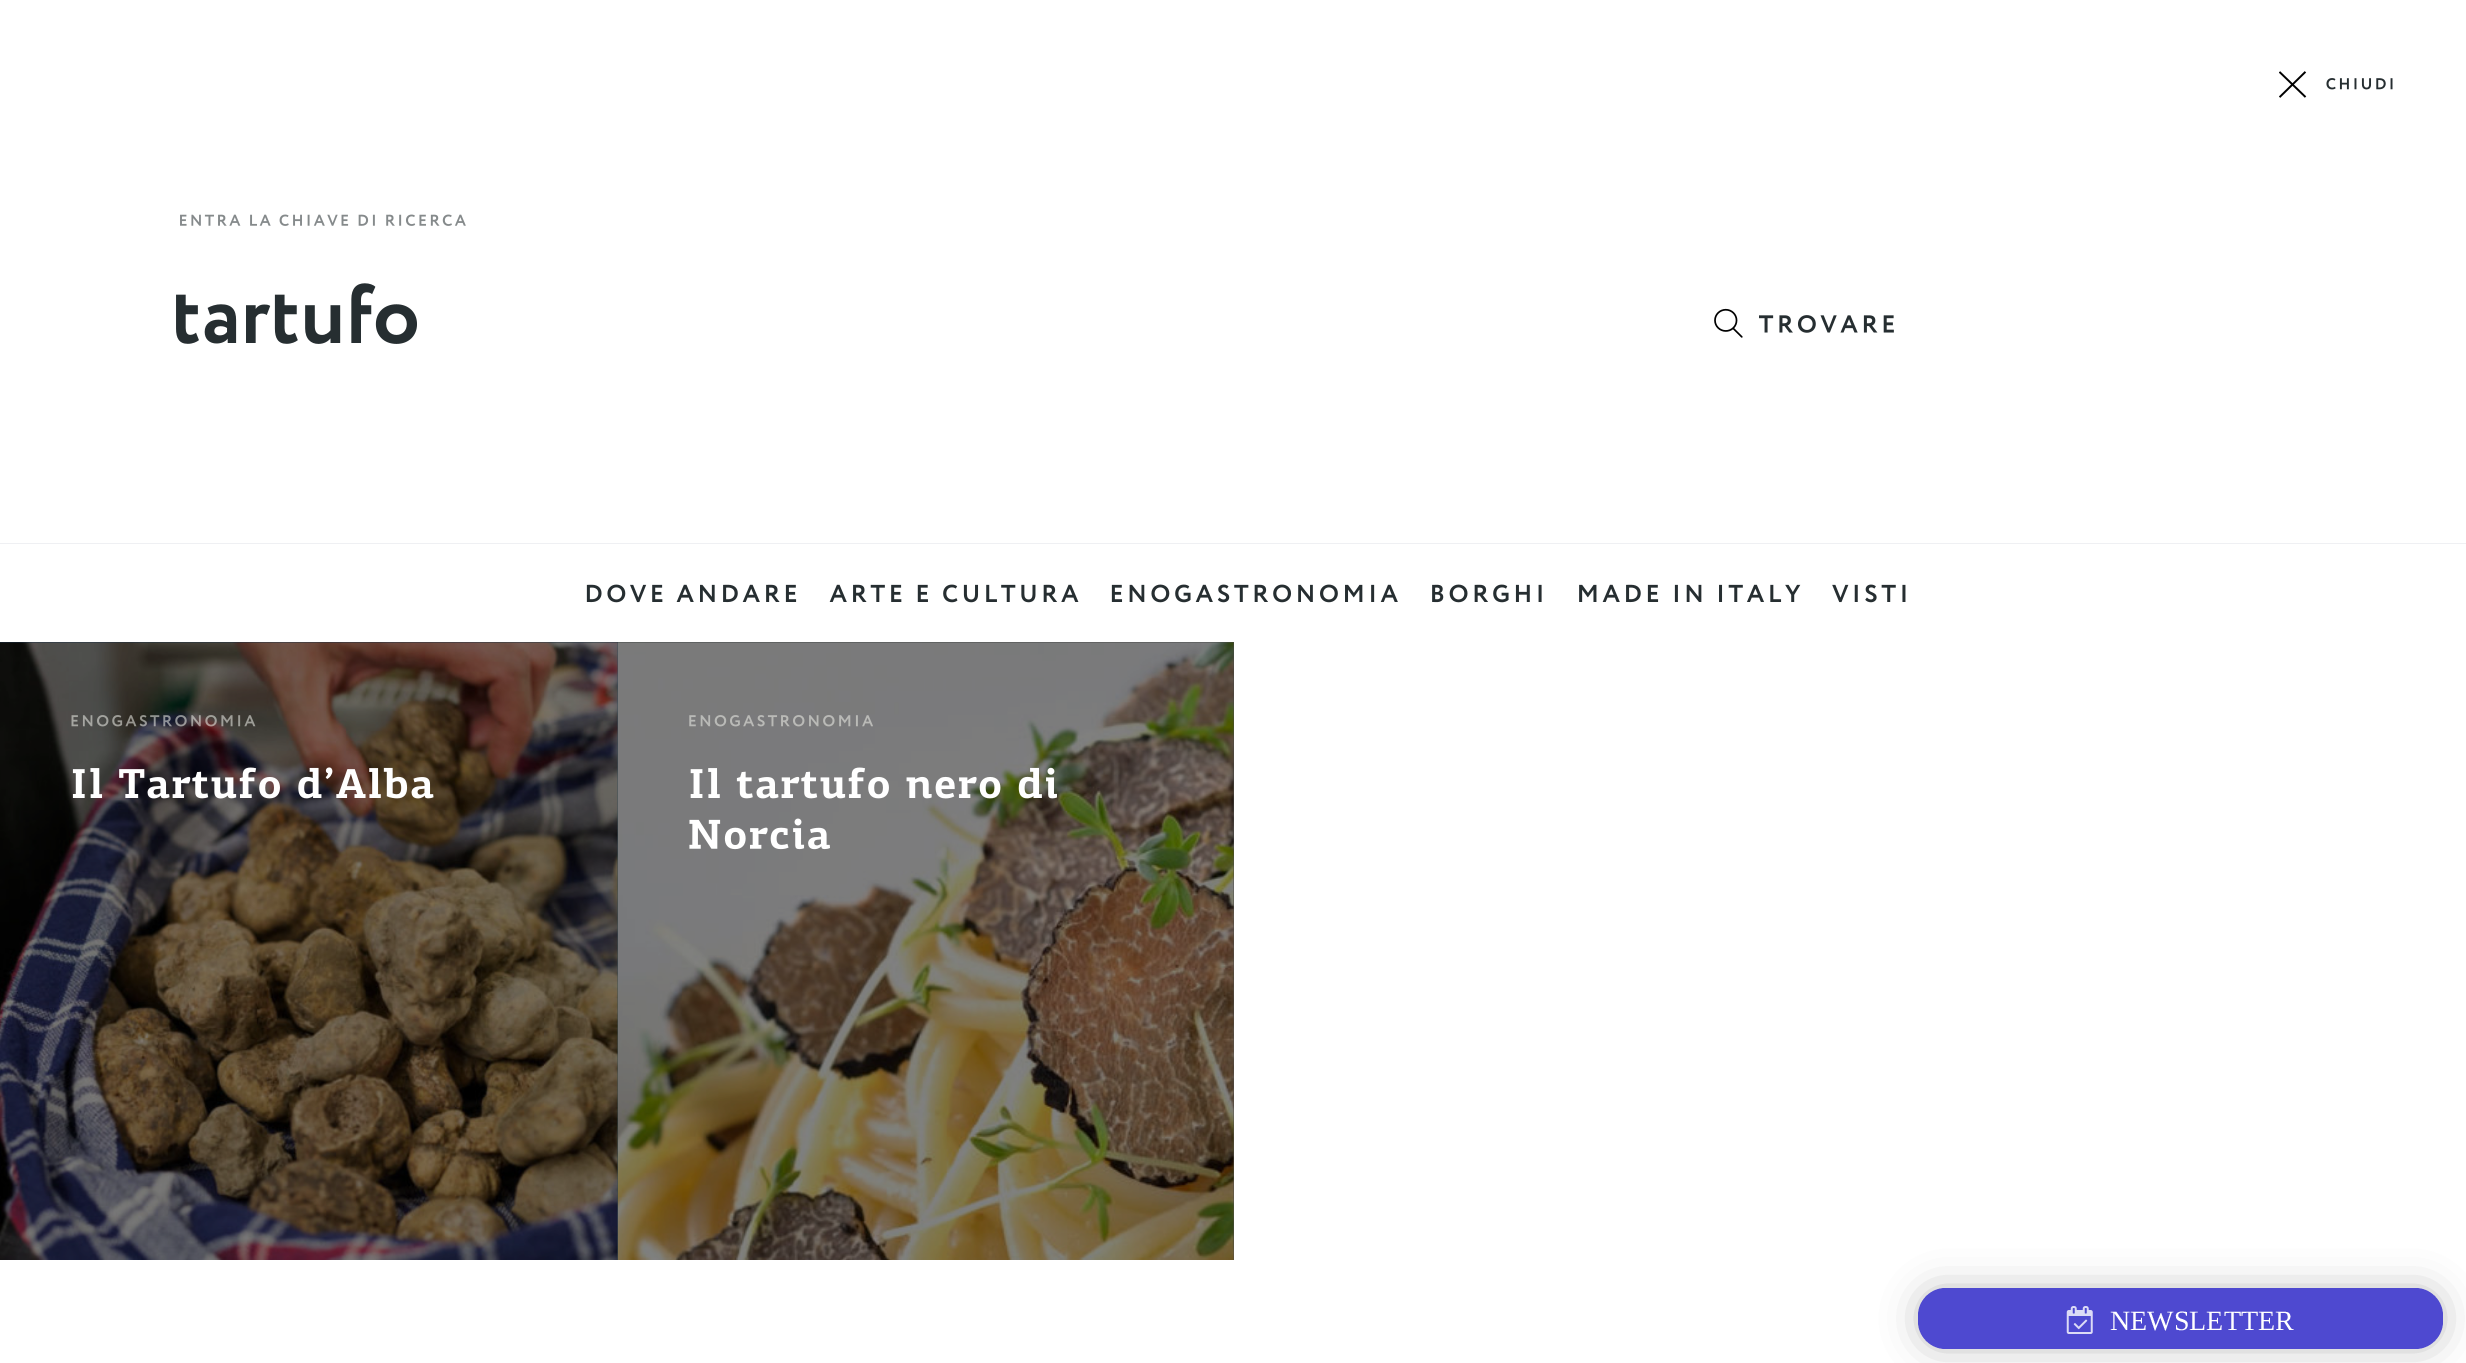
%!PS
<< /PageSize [2466 1363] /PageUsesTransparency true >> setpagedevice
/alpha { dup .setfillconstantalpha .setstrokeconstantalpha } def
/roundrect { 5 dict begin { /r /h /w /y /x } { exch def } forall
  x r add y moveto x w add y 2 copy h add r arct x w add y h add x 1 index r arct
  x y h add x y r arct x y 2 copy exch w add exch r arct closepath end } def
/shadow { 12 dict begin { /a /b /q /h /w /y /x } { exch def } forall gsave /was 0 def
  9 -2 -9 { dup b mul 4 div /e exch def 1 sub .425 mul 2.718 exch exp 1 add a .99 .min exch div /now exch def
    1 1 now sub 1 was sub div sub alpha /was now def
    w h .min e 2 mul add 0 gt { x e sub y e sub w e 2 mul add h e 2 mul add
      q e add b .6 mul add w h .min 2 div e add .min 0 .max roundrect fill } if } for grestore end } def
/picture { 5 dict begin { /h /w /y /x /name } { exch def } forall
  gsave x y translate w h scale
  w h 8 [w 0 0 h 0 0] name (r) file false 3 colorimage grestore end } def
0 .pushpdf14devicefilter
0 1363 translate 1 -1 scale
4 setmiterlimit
1 setgray
0 0 2466 1363 rectfill
(img1.rgb) 2279 71 28 27 picture
(img2.rgb) 2326 78 67 12 picture
(img3.rgb) 180 214 286 12 picture
(img4.rgb) 176 283 241 61 picture
(img5.rgb) 1714 308 29 30 picture
(img6.rgb) 1759 315 135 18 picture
0.937 0.941 0.953 setrgbcolor
0 543 2466 1 rectfill
(img7.rgb) 586 584 211 19 picture
(img8.rgb) 829 584 250 19 picture
(img9.rgb) 1111 584 287 19 picture
(img10.rgb) 1432 584 110 19 picture
(img11.rgb) 1579 584 222 19 picture
(img12.rgb) 1832 584 74 19 picture
gsave newpath 0 642 moveto 618 642 lineto 618 1260 lineto 0 1260 lineto closepath clip newpath
<< /ShadingType 2 /ColorSpace /DeviceRGB /Coords [0 642 618 1260] /Extend [true true] /Function << /FunctionType 2 /Domain [0 1] /C0 [0.114 0.188 0.271] /C1 [0.137 0.22 0.224] /N 1 >> >> shfill grestore
(img13.rgb) 0 642 618 618 picture
(img14.rgb) 71 715 185 12 picture
(img15.rgb) 72 767 362 32 picture
gsave newpath 618 642 moveto 1234 642 lineto 1234 1260 lineto 618 1260 lineto closepath clip newpath
<< /ShadingType 2 /ColorSpace /DeviceRGB /Coords [617 643 1234 1260] /Extend [true true] /Function << /FunctionType 2 /Domain [0 1] /C0 [0.231 0.267 0.259] /C1 [0.31 0.294 0.29] /N 1 >> >> shfill grestore
(img16.rgb) 617 642 617 618 picture
(img17.rgb) 689 715 184 12 picture
(img18.rgb) 690 767 367 32 picture
(img19.rgb) 689 818 141 32 picture
0.2 setgray
1918 1288 525 61 28 17.5 0.3 shadow
0.306 0.286 0.816 setrgbcolor
1918 1288 525 61 28 roundrect fill
(img20.rgb) 2066 1306 27 28 picture
/LiberationSerif-Regular [28 0 0 -28 0 0] selectfont
1 setgray
2110 1330 moveto (NEWSLETTER) show
.poppdf14devicefilter showpage
